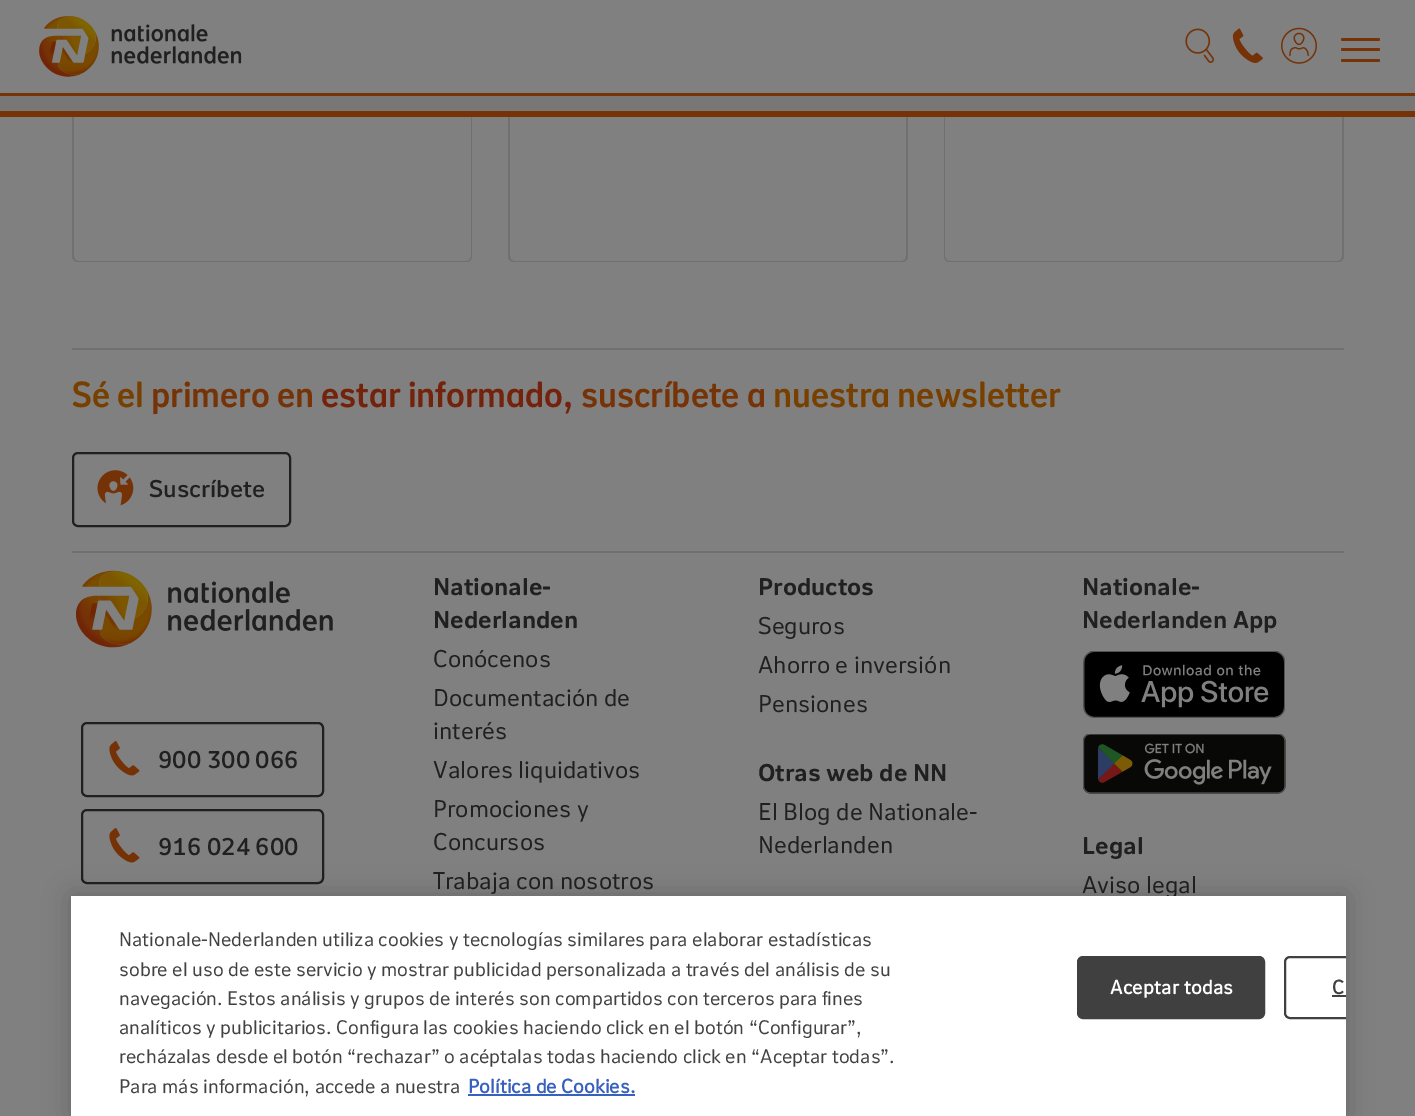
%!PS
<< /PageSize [1415 1116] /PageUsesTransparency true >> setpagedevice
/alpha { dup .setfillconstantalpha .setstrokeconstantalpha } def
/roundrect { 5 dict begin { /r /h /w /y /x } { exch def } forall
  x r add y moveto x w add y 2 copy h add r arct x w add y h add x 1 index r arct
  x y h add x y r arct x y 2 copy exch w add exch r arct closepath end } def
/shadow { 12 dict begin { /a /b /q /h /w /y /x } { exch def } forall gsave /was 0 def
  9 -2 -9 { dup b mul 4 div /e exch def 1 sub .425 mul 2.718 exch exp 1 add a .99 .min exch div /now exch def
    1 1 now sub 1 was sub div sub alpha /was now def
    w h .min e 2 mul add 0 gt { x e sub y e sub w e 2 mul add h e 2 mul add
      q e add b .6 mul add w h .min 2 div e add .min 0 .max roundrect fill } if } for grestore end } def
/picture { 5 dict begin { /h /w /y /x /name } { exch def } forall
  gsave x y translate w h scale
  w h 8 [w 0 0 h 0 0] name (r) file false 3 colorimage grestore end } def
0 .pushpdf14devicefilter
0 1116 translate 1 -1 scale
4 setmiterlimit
0.502 setgray
0 0 1415 1116 rectfill
0.451 0.435 0.427 setrgbcolor
newpath 72 -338 moveto 472 -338 lineto 472 256 lineto 472 260 470 262 466 262 curveto 78 262 lineto 75 262 72 260 72 256 curveto closepath 74 -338 moveto 471 -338 lineto 471 256 lineto 471 259 469 261 466 261 curveto 78 261 lineto 76 261 74 259 74 256 curveto closepath eofill
newpath 508 -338 moveto 908 -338 lineto 908 256 lineto 908 260 905 262 902 262 curveto 514 262 lineto 511 262 508 260 508 256 curveto closepath 510 -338 moveto 906 -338 lineto 906 256 lineto 906 259 904 261 902 261 curveto 514 261 lineto 512 261 510 259 510 256 curveto closepath eofill
newpath 944 -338 moveto 1344 -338 lineto 1344 256 lineto 1344 260 1341 262 1338 262 curveto 950 262 lineto 946 262 944 260 944 256 curveto closepath 945 -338 moveto 1342 -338 lineto 1342 256 lineto 1342 259 1340 261 1338 261 curveto 950 261 lineto 947 261 945 259 945 256 curveto closepath eofill
0.459 0.2 0.027 setrgbcolor
0 111 1415 6 rectfill
0.475 0.467 0.463 setrgbcolor
0 96 1415 15 rectfill
0.502 setgray
72 0 1272 93 rectfill
0.459 0.2 0.027 setrgbcolor
0 93 1415 3 rectfill
(img1.rgb) 39 16 203 61 picture
(img2.rgb) 1185 28 29 35 picture
(img3.rgb) 1232 28 31 35 picture
(img4.rgb) 1281 27 36 37 picture
1341 38 39 3 1.5 roundrect fill
1341 48 39 3 1.5 roundrect fill
1341 59 39 3 1.5 roundrect fill
0.451 0.435 0.427 setrgbcolor
72 348 1272 2 rectfill
72 551 1272 2 rectfill
/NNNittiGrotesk-SemiBold [36 0 0 -36 0 0] selectfont
0.467 0.251 0 setrgbcolor
72 407 moveto (Sé el) show
0.459 0.2 0.027 setrgbcolor
151 407 moveto (primero en) show
0.451 0.133 0.043 setrgbcolor
321 407 moveto (estar informado,) show
0.459 0.2 0.027 setrgbcolor
581 407 moveto (suscríbete a) show
0.467 0.251 0 setrgbcolor
773 407 moveto (nuestra newsletter) show
0.125 setgray
2 setlinewidth
73 453 217 73 5 roundrect stroke
(img5.rgb) 97 470 37 36 picture
/NNNittiGrotesk-Medium [24 0 0 -24 0 0] selectfont
149 497 moveto (Suscríbete) show
(img6.rgb) 76 570 257 78 picture
82 723 241 73 5 roundrect stroke
(img7.rgb) 109 741 31 35 picture
158 768 moveto (900 300 066) show
82 810 241 73 5 roundrect stroke
(img7.rgb) 109 828 31 35 picture
158 855 moveto (916 024 600) show
/NNNittiGrotesk-Bold [24 0 0 -24 0 0] selectfont
433 595 moveto (Nationale-) show
433 628 moveto (Nederlanden) show
/NNNittiGrotesk-Regular [24 0 0 -24 0 0] selectfont
433 667 moveto (Conócenos) show
433 706 moveto (Documentación de) show
433 739 moveto (interés) show
433 778 moveto (Valores liquidativos) show
433 817 moveto (Promociones y) show
433 850 moveto (Concursos) show
433 889 moveto (Trabaja con nosotros) show
/NNNittiGrotesk-Bold [24 0 0 -24 0 0] selectfont
758 595 moveto (Productos) show
/NNNittiGrotesk-Regular [24 0 0 -24 0 0] selectfont
758 634 moveto (Seguros) show
758 673 moveto (Ahorro e inversión) show
758 712 moveto (Pensiones) show
/NNNittiGrotesk-Bold [24 0 0 -24 0 0] selectfont
758 781 moveto (Otras web de NN) show
/NNNittiGrotesk-Regular [24 0 0 -24 0 0] selectfont
758 820 moveto (El Blog de Nationale-) show
758 853 moveto (Nederlanden) show
/NNNittiGrotesk-Bold [24 0 0 -24 0 0] selectfont
1082 595 moveto (Nationale-) show
1082 628 moveto (Nederlanden App) show
(img8.rgb) 1083 651 202 67 picture
(img9.rgb) 1083 734 203 60 picture
1082 854 moveto (Legal) show
/NNNittiGrotesk-Regular [24 0 0 -24 0 0] selectfont
1082 893 moveto (Aviso legal) show
0 setgray
71 896 1275 220 0 13.5 0.2 shadow
1 setgray
71 896 1275 220 rectfill
/NNNittiGrotesk-Regular [19.5 0 0 -19.5 0 0] selectfont
0.255 setgray
119 946 moveto (Nationale-Nederlanden utiliza cookies y tecnologías similares para elaborar estadísticas) show
119 976 moveto (sobre el uso de este servicio y mostrar publicidad personalizada a través del análisis de su) show
119 1005 moveto (navegación. Estos análisis y grupos de interés son compartidos con terceros para fines) show
119 1034 moveto (analíticos y publicitarios. Configura las cookies haciendo click en el botón “Configurar”,) show
119 1063 moveto (recházalas desde el botón “rechazar” o acéptalas todas haciendo click en “Aceptar todas”.) show
119 1093 moveto (Para más información, accede a nuestra) show
/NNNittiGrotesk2-Bold [19.5 0 0 -19.5 0 0] selectfont
0.22 0.376 0.745 setrgbcolor
468 1093 moveto (Política de Cookies.) show
468 1094 167 2 rectfill
0.251 setgray
1078 957 186 61 5 roundrect gsave fill grestore
stroke
1 setgray
1110 994 moveto 0.25 0 (Aceptar todas) ashow
gsave
71 896 1275 220 rectclip
0.251 setgray
1285 957 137 61 5 roundrect stroke
grestore
0.255 setgray
1332 994 moveto 0.25 0 (C) ashow
0.251 setgray
1332 995 14 2 rectfill
.poppdf14devicefilter showpage
